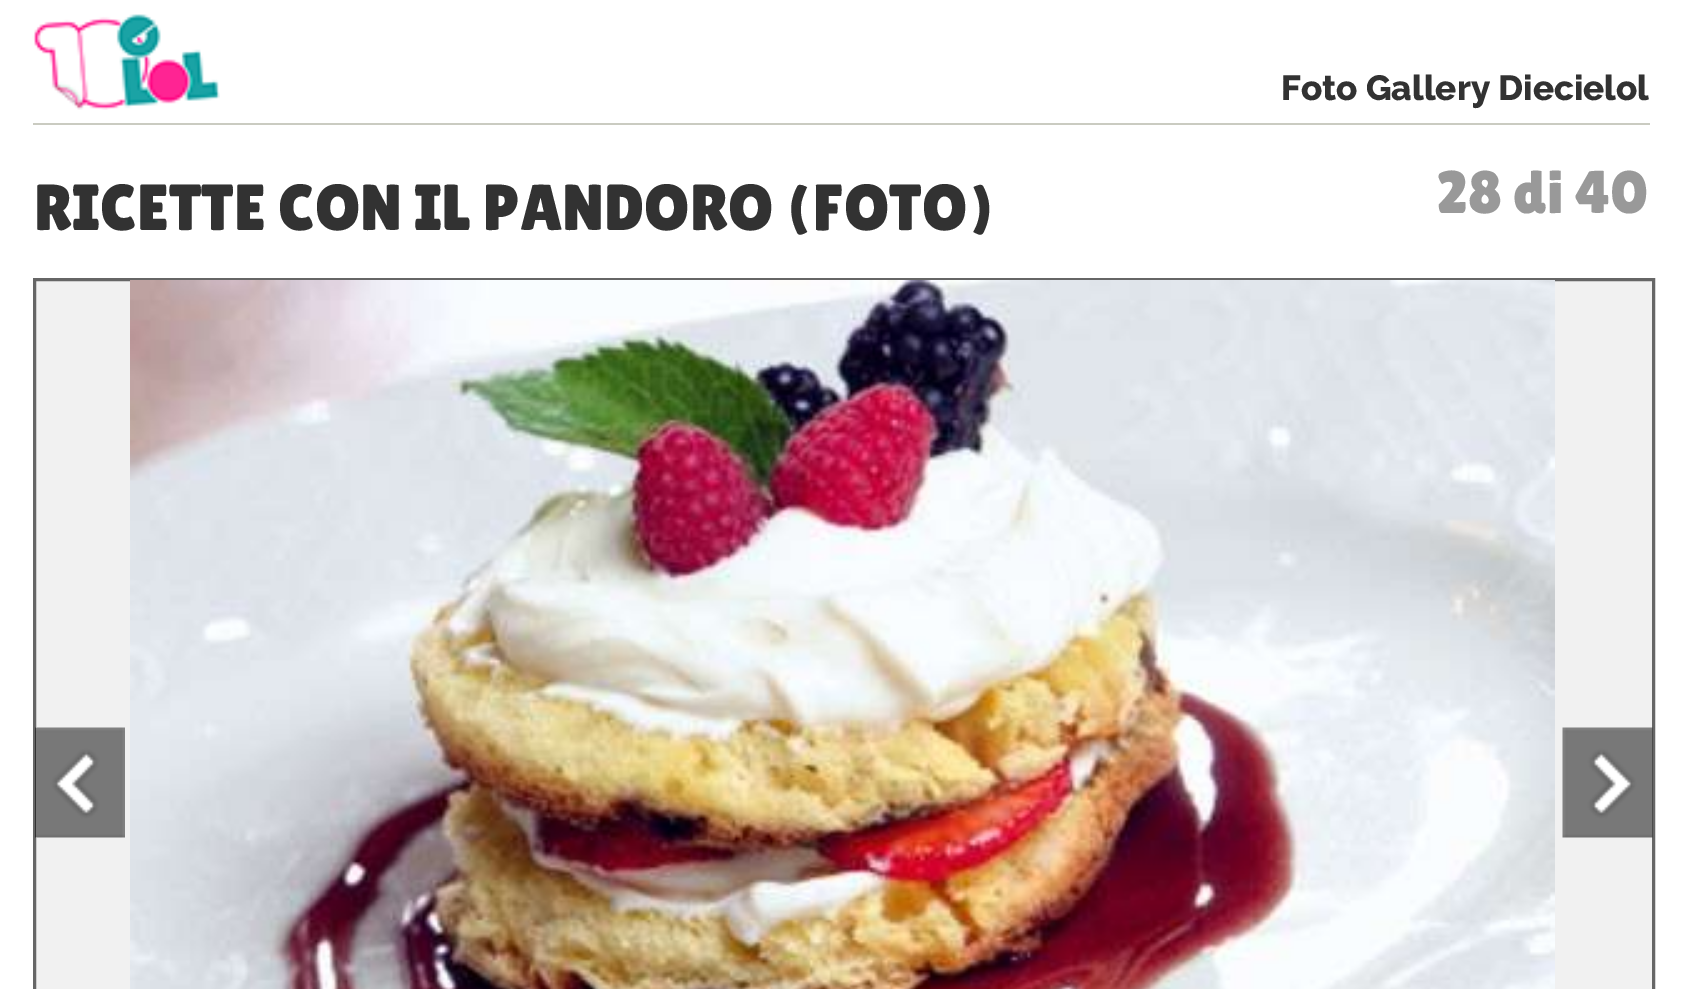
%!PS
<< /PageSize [1682 989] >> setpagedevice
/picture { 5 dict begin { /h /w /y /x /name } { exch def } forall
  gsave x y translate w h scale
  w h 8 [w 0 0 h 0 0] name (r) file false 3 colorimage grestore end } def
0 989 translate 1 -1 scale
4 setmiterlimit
1 setgray
0 0 1682 989 rectfill
0.792 0.796 0.757 setrgbcolor
33 123 1617 2 rectfill
(img1.rgb) 32 14 188 96 picture
/Raleway-ExtraBold [35 0 0 -35 0 0] selectfont
0.196 setgray
1281 100 moveto (Foto Gallery Diecielol) show
/LilitaOne-Regular [65 0 0 -65 0 0] selectfont
34 230 moveto (RICETTE CON IL PANDORO \(FOTO\)) show
/LilitaOne-Regular [60 0 0 -60 0 0] selectfont
0.6 setgray
1436 213 moveto (28 di 40) show
0.945 setgray
newpath 34.5 279.5 moveto 1653.5 279.5 lineto 1653.5 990.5 lineto 34.5 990.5 lineto closepath gsave fill grestore
0.4 setgray
3 setlinewidth
stroke
(img2.rgb) 35 727 90 111 picture
(img3.rgb) 130 280 1425 709 picture
(img4.rgb) 1562 727 91 111 picture
showpage
